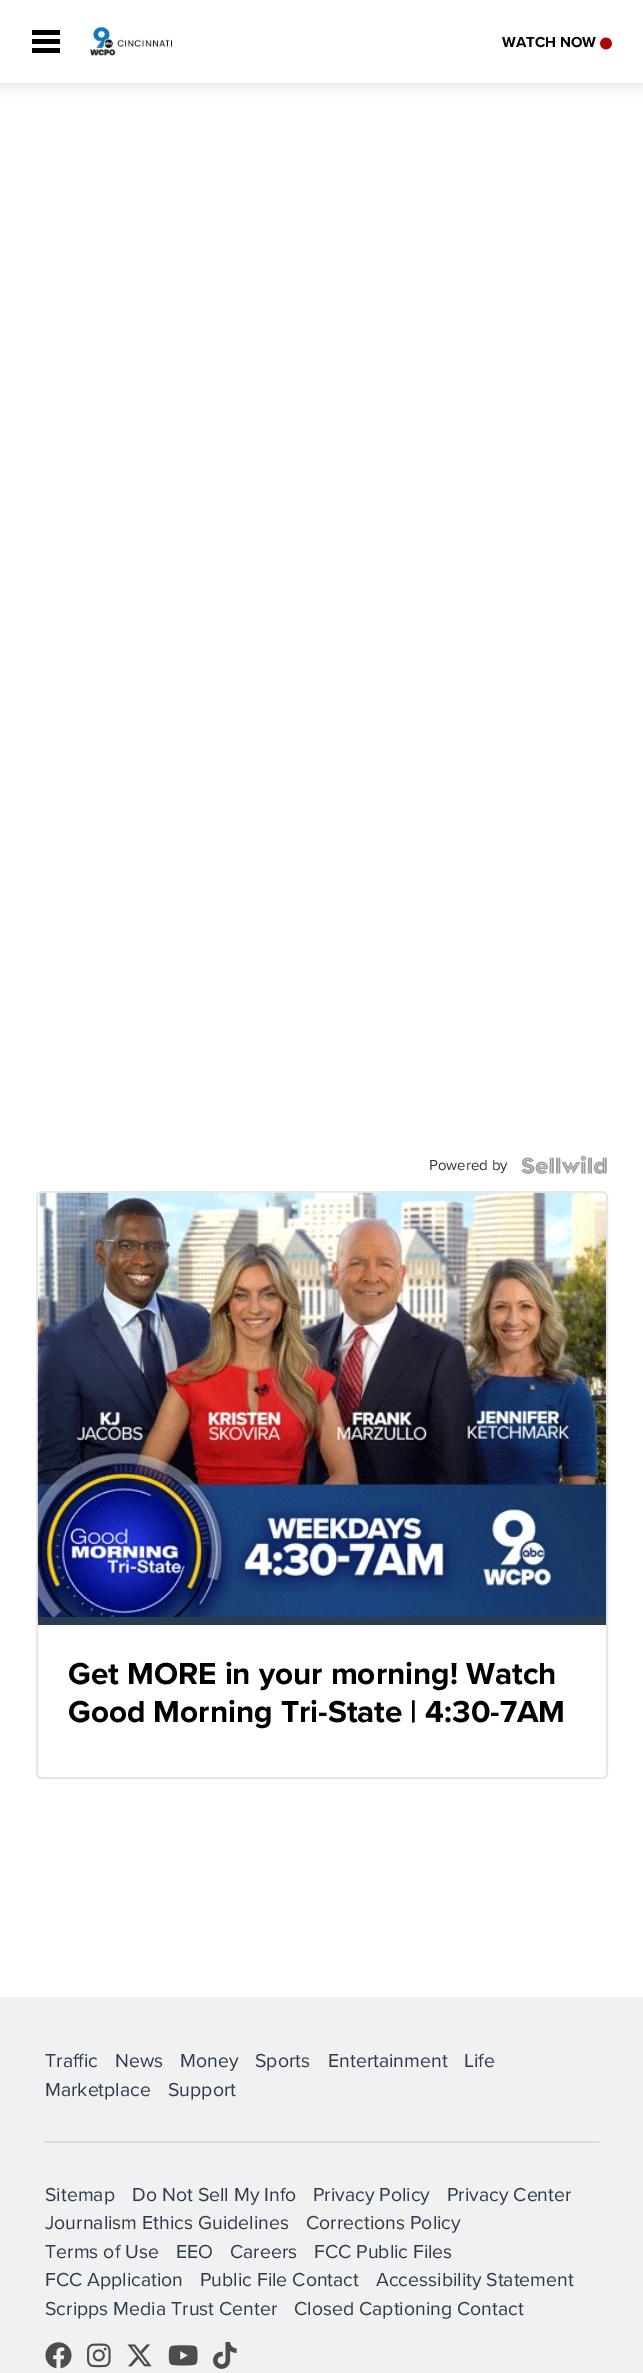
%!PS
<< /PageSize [643 2373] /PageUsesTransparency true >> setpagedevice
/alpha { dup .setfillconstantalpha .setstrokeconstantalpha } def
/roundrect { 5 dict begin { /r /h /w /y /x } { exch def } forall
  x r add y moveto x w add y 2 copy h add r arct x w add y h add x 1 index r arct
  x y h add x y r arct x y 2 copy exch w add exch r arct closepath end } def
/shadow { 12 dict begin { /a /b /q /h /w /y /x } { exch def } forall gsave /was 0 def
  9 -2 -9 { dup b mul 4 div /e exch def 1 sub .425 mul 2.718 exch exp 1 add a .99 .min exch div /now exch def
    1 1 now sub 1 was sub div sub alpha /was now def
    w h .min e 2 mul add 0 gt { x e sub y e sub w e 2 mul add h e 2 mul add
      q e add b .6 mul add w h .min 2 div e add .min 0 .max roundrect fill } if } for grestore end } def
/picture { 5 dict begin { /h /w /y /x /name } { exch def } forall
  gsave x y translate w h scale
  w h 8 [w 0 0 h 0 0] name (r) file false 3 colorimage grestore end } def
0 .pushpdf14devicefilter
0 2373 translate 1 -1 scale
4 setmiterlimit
1 setgray
0 0 643 2373 rectfill
gsave
newpath 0 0 moveto 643 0 lineto 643 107 lineto 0 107 lineto closepath 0 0 moveto 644 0 lineto 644 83 lineto 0 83 lineto closepath eoclip newpath
0.8 setgray
0 0 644 83 0 7.5 0.8 shadow
grestore
0.98 alpha
0 82 643 1 rectfill
1 alpha
0 setgray
32 30 28 5 rectfill
32 39 28 5 rectfill
32 48 28 5 rectfill
(img1.rgb) 90 26 82 30 picture
/ProximaNova-Bold [15 0 0 -15 0 0] selectfont
502 47 moveto (WATCH NOW) show
(img2.rgb) 600 37 12 13 picture
/ProximaNova-Regular [15 0 0 -15 0 0] selectfont
0.188 setgray
429 1170 moveto (Powered by) show
(img3.rgb) 521 1155 86 19 picture
0.906 setgray
2 setlinewidth
37 1192 570 586 5 roundrect stroke
(img4.rgb) 37 1192 569 427 picture
0.165 0.235 0.31 setrgbcolor
38 1617 568 8 rectfill
/ProximaNova-Bold [31.5 0 0 -31.5 0 0] selectfont
0 setgray
68 1684 moveto (Get MORE in your morning! Watch) show
68 1722 moveto (Good Morning Tri-State | 4:30-7AM) show
0.945 setgray
0 1997 643 376 rectfill
/ProximaNova-Regular [19.5 0 0 -19.5 0 0] selectfont
0.165 0.235 0.31 setrgbcolor
45 2067 moveto (Traffic) show
115 2067 moveto (News) show
180 2067 moveto (Money) show
255 2067 moveto (Sports) show
328 2067 moveto (Entertainment) show
464 2067 moveto (Life) show
45 2096 moveto (Marketplace) show
168 2096 moveto (Support) show
0.867 setgray
45 2141 554 2 rectfill
0.165 0.235 0.31 setrgbcolor
45 2201 moveto (Sitemap) show
132 2201 moveto (Do Not Sell My Info) show
313 2201 moveto (Privacy Policy) show
447 2201 moveto (Privacy Center) show
45 2229 moveto (Journalism Ethics Guidelines) show
306 2229 moveto (Corrections Policy) show
45 2258 moveto (Terms of Use) show
176 2258 moveto (EEO) show
230 2258 moveto (Careers) show
314 2258 moveto (FCC Public Files) show
45 2286 moveto (FCC Application) show
200 2286 moveto (Public File Contact) show
376 2286 moveto (Accessibility Statement) show
45 2315 moveto (Scripps Media Trust Center) show
294 2315 moveto (Closed Captioning Contact) show
(img5.rgb) 45 2342 27 27 picture
(img6.rgb) 87 2343 24 25 picture
(img7.rgb) 127 2344 25 23 picture
(img8.rgb) 168 2345 30 21 picture
(img9.rgb) 213 2342 24 27 picture
.poppdf14devicefilter showpage
